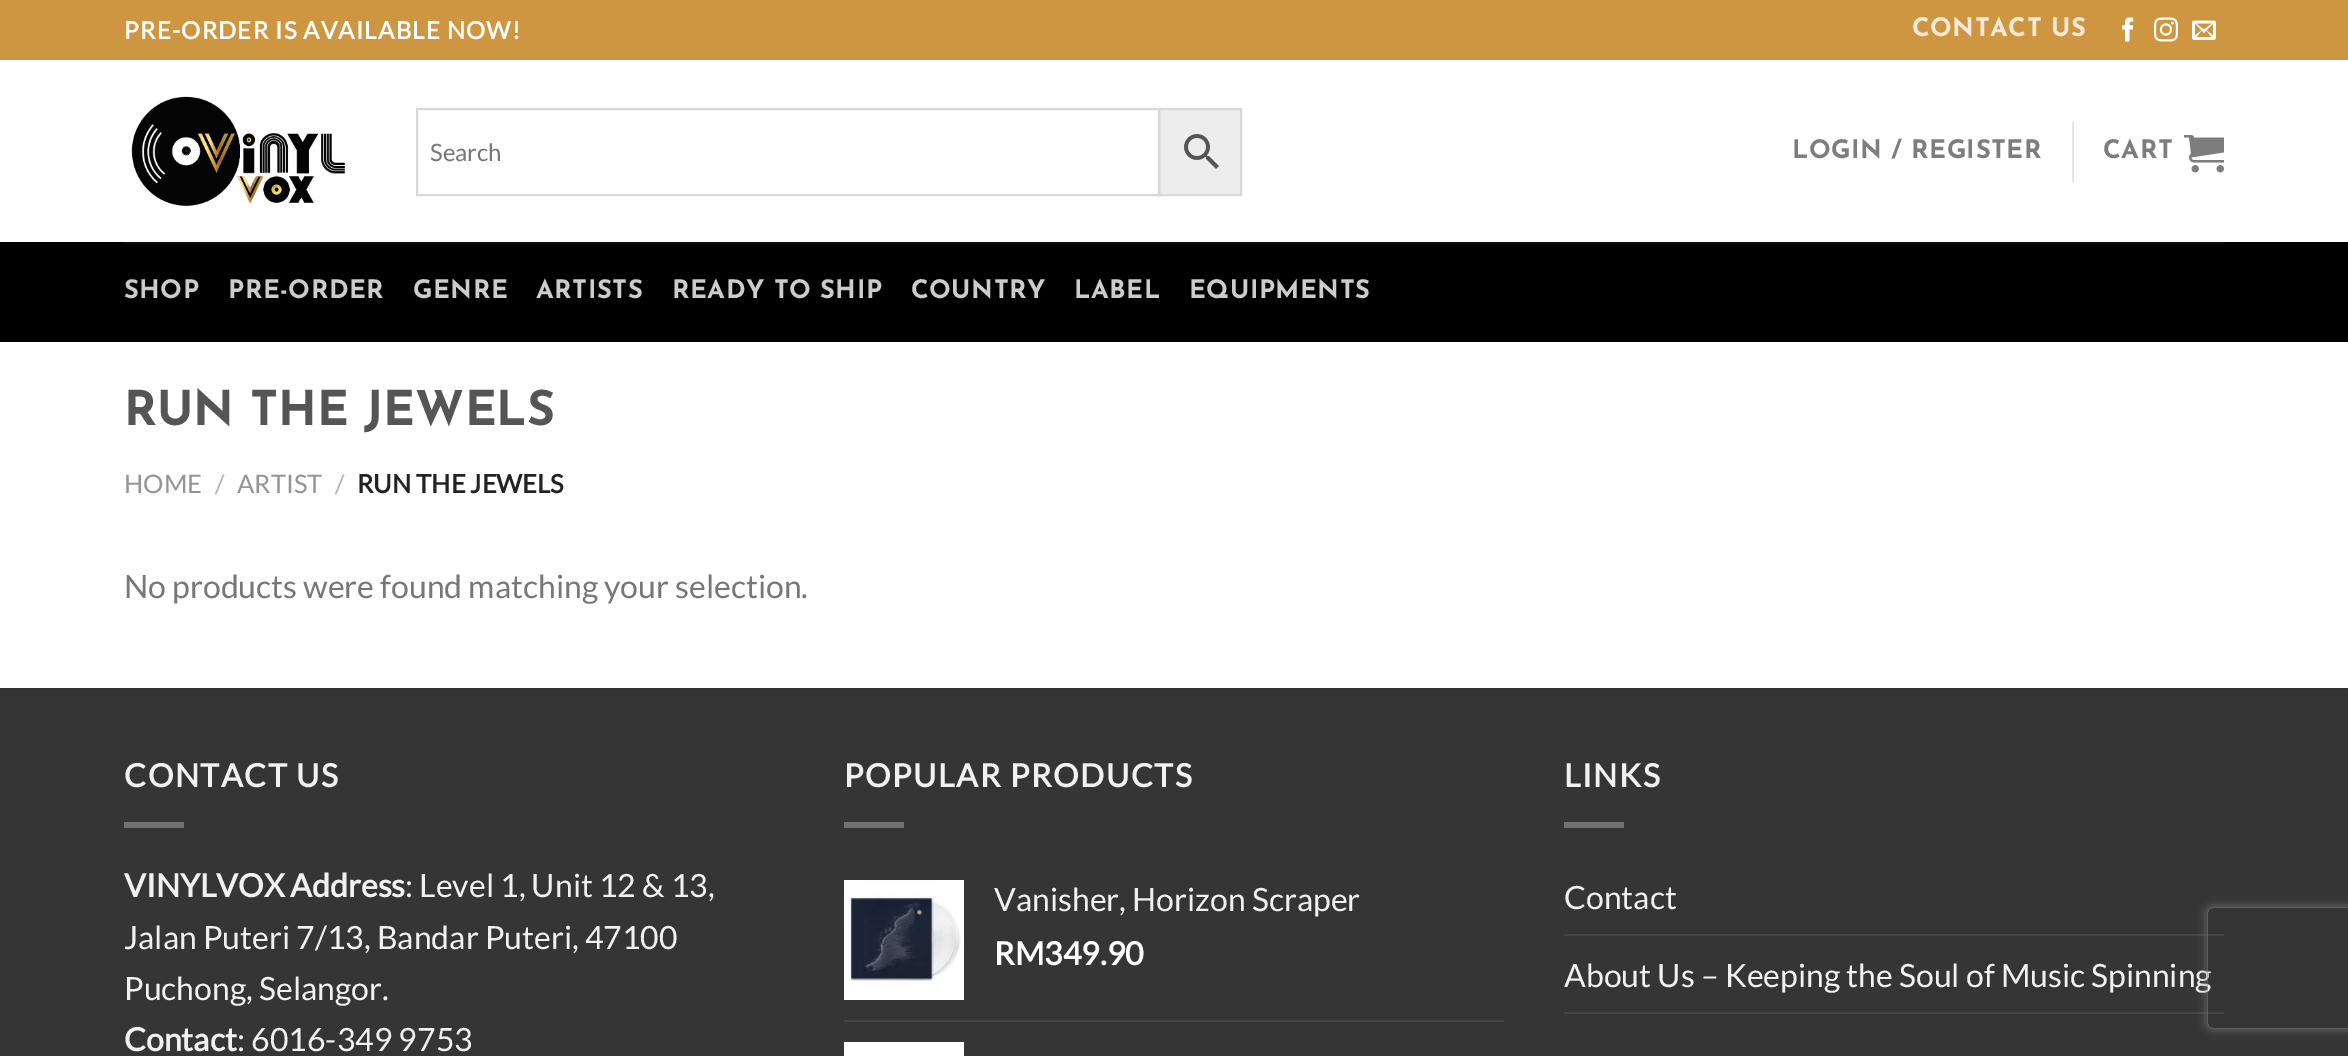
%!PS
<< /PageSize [2348 1056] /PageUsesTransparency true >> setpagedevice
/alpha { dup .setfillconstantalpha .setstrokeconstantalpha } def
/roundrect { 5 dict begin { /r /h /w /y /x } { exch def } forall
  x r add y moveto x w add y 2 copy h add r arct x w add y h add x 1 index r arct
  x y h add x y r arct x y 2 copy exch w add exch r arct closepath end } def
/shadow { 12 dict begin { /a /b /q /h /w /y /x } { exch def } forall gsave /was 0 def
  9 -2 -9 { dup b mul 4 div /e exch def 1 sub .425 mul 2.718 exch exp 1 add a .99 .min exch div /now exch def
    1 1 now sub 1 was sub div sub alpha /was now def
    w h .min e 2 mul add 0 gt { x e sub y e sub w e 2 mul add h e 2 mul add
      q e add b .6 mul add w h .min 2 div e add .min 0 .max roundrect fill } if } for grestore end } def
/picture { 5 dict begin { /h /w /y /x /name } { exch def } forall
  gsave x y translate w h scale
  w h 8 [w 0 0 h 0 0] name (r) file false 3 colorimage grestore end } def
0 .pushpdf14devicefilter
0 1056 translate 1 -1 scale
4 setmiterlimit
1 setgray
0 0 2348 1056 rectfill
0.812 0.588 0.259 setrgbcolor
0 0 2348 60 rectfill
/Lato-Bold [24 0 0 -24 0 0] selectfont
1 setgray
124 39 moveto 1.2 0 (PRE-ORDER IS AVAILABLE NOW!) ashow
/JosefinSans-Thin [25.5 0 0 -25.5 0 0] selectfont
0.961 0.918 0.851 setrgbcolor
1912 36 moveto 0.5 0 (CONTACT US) ashow
(img1.rgb) 2122 17 12 25 picture
(img2.rgb) 2154 17 24 25 picture
(img3.rgb) 2192 20 24 20 picture
(img4.rgb) 131 96 214 110 picture
0.929 setgray
newpath 1159 109 moveto 1241 109 lineto 1241 195 lineto 1159 195 lineto closepath gsave fill grestore
0.847 setgray
2 setlinewidth
stroke
417 109 742 86 rectstroke
/Lato-Regular [24 0 0 -24 0 0] selectfont
0.467 setgray
430 161 moveto (Search) show
(img5.rgb) 1184 134 35 35 picture
/JosefinSans-Thin [25.5 0 0 -25.5 0 0] selectfont
0.49 setgray
1792 158 moveto 0.5 0 (LOGIN / REGISTER) ashow
0.902 setgray
2072 122 2 60 rectfill
0.49 setgray
2103 158 moveto 0.5 0 (CART) ashow
(img6.rgb) 2184 135 40 38 picture
0 setgray
0 242 2348 100 rectfill
0.047 setgray
124 242 2100 2 rectfill
0.8 setgray
124 298 moveto 0.5 0 (SHOP) ashow
228 298 moveto 0.5 0 (PRE-ORDER) ashow
413 298 moveto 0.5 0 (GENRE) ashow
536 298 moveto 0.5 0 (ARTISTS) ashow
672 298 moveto 0.5 0 (READY TO SHIP) ashow
911 298 moveto 0.5 0 (COUNTRY) ashow
1074 298 moveto 0.5 0 (LABEL) ashow
1189 298 moveto 0.5 0 (EQUIPMENTS) ashow
/JosefinSans-Thin [48 0 0 -48 0 0] selectfont
0.333 setgray
124 425 moveto (RUN THE JEWELS) show
/Lato-Regular [25.5 0 0 -25.5 0 0] selectfont
0.58 setgray
124 493 moveto (HOME) show
0.698 setgray
215 493 moveto (/) show
0.58 setgray
237 493 moveto (ARTIST) show
0.698 setgray
335 493 moveto (/) show
/Lato-Bold [25.5 0 0 -25.5 0 0] selectfont
0.133 setgray
357 493 moveto (RUN THE JEWELS) show
/Lato-Regular [32 0 0 -32 0 0] selectfont
0.467 setgray
124 598 moveto (No products were found matching your selection.) show
0.208 setgray
0 690 2348 366 rectfill
0.196 setgray
0 688 2348 2 rectfill
/Lato-Bold [32 0 0 -32 0 0] selectfont
0.945 setgray
124 787 moveto 1.6 0 (CONTACT US) ashow
0.447 setgray
124 822 60 6 rectfill
0.945 setgray
124 897 moveto (VINYLVOX Address) show
/Lato-Regular [32 0 0 -32 0 0] selectfont
405 897 moveto (: Level 1, Unit 12 & 13,) show
124 949 moveto (Jalan Puteri 7/13, Bandar Puteri, 47100) show
124 1000 moveto (Puchong, Selangor.) show
/Lato-Bold [32 0 0 -32 0 0] selectfont
124 1051 moveto (Contact) show
/Lato-Regular [32 0 0 -32 0 0] selectfont
237 1051 moveto (: 6016-349 9753) show
/Lato-Bold [32 0 0 -32 0 0] selectfont
844 787 moveto 1.6 0 (POPULAR PRODUCTS) ashow
0.447 setgray
844 822 60 6 rectfill
(img7.rgb) 844 880 120 120 picture
/Lato-Regular [32 0 0 -32 0 0] selectfont
0.945 setgray
994 911 moveto (Vanisher, Horizon Scraper) show
/Lato-Bold [32 0 0 -32 0 0] selectfont
1 setgray
994 965 moveto (RM349.90) show
0.271 setgray
844 1020 660 2 rectfill
1 setgray
844 1042 120 14 rectfill
0.945 setgray
1564 787 moveto 1.6 0 (LINKS) ashow
0.447 setgray
1564 822 60 6 rectfill
/Lato-Regular [32 0 0 -32 0 0] selectfont
0.945 setgray
1564 909 moveto (Contact) show
0.271 setgray
1564 934 660 2 rectfill
0.945 setgray
1564 987 moveto (About Us – Keeping the Soul of Music Spinning) show
0.271 setgray
1564 1012 660 2 rectfill
gsave
newpath 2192 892 moveto 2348 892 lineto 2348 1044 lineto 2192 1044 lineto closepath 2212 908 moveto 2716 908 lineto 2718 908 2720 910 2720 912 curveto 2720 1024 lineto 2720 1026 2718 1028 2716 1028 curveto 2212 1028 lineto 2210 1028 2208 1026 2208 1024 curveto 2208 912 lineto 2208 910 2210 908 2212 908 curveto closepath eoclip newpath
0.502 setgray
2208 908 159 120 4 5 1 shadow
grestore
.poppdf14devicefilter showpage
